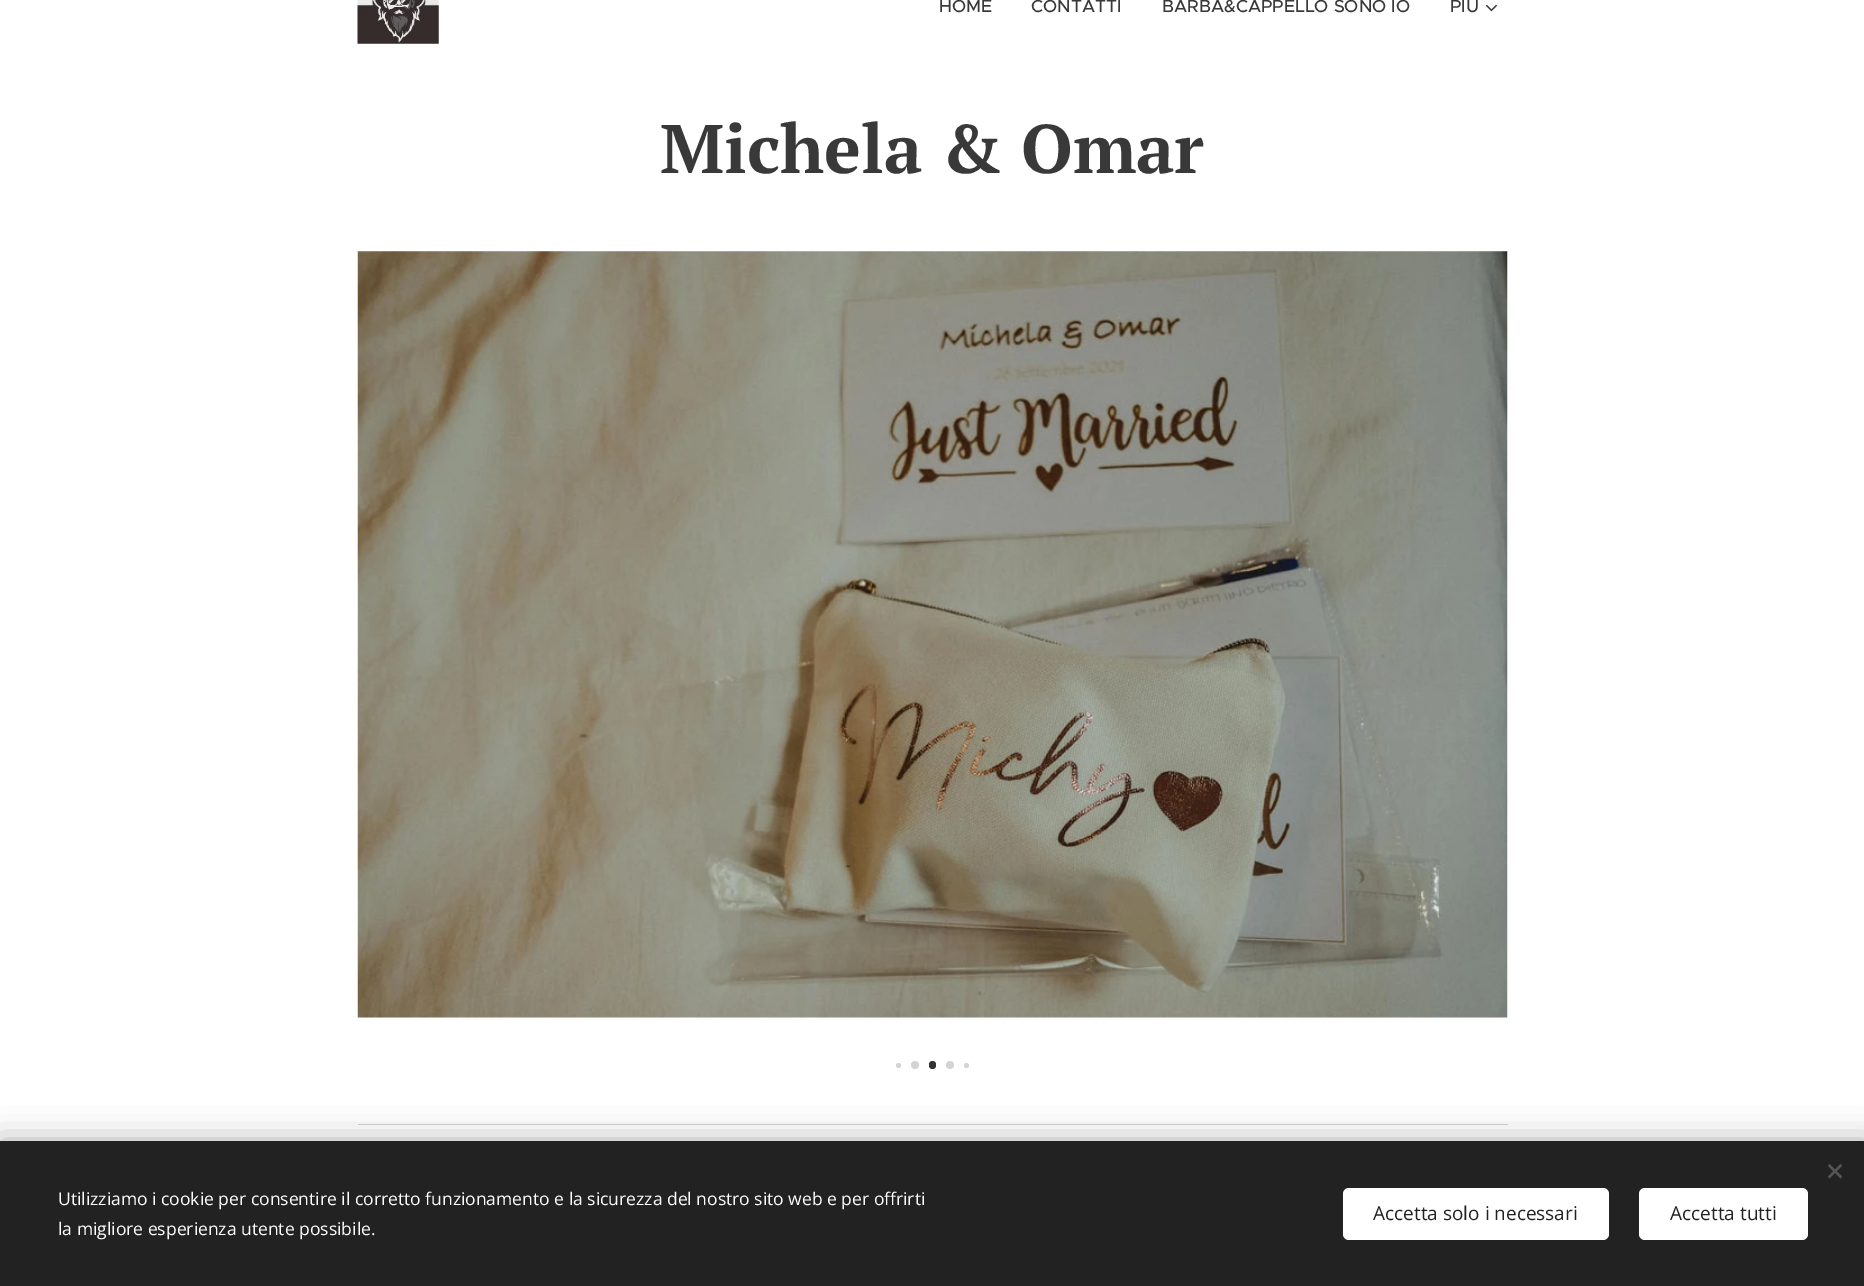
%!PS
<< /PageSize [1864 1286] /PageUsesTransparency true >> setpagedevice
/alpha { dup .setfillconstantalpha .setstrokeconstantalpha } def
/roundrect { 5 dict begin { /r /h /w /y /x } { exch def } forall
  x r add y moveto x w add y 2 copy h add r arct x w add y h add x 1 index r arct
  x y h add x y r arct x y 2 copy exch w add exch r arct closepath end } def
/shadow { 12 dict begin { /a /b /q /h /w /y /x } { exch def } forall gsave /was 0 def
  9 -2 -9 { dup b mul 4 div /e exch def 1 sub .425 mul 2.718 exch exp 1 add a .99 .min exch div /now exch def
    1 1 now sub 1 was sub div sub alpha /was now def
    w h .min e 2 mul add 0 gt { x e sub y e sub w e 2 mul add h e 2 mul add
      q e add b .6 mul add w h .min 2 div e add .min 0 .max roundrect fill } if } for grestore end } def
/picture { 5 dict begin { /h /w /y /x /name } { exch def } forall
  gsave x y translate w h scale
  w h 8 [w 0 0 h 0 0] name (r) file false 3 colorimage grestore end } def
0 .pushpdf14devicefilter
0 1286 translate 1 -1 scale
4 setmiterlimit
1 setgray
0 0 1864 1286 rectfill
(img1.rgb) 357 0 82 44 picture
/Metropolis-Medium [17.5 0 0 -17.5 0 0] selectfont
0.224 setgray
939 12 moveto (HOME) show
1031 12 moveto (CONTATTI) show
1162 12 moveto (BARBA&CAPPELLO SONO IO) show
1450 12 moveto (PIÙ) show
(img2.rgb) 1485 4 12 8 picture
/PTSerif-Bold [68.75 0 0 -68.75 0 0] selectfont
660 173 moveto (Michela & Omar) show
(img3.rgb) 357 251 1151 767 picture
0.831 setgray
newpath 898.5 1065.5 2.5 0 360 arc closepath fill
newpath 915 1065 4 0 360 arc closepath fill
0.2 setgray
929 1061 7 8 3.5 roundrect fill
0.831 setgray
newpath 950 1065 4 0 360 arc closepath fill
newpath 966.5 1065.5 2.5 0 360 arc closepath fill
358 1124 1150 1 rectfill
0 setgray
0 1141 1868 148 0 15.5 0.33 shadow
0.133 setgray
0 1141 1864 145 rectfill
0.333 setgray
newpath 1828 1176.5 moveto 1840.5 1164 lineto 1842 1166 lineto 1829.5 1178.5 lineto closepath fill
newpath 1829.5 1164 moveto 1842 1176.5 lineto 1840.5 1178.5 lineto 1828 1166 lineto closepath fill
/OpenSans-Regular [17.5 0 0 -17.5 0 0] selectfont
1 setgray
58 1205 moveto (Utilizziamo i cookie per consentire il corretto funzionamento e la sicurezza del nostro sito web e per offrirti) show
58 1235 moveto (la migliore esperienza utente possibile.) show
1343 1188 266 52 6 roundrect fill
/OpenSans-Regular [19 0 0 -19 0 0] selectfont
0.133 setgray
1373 1220 moveto (Accetta solo i necessari) show
1 setgray
1639 1188 169 52 6 roundrect fill
0.133 setgray
1670 1220 moveto (Accetta tutti) show
.poppdf14devicefilter showpage
